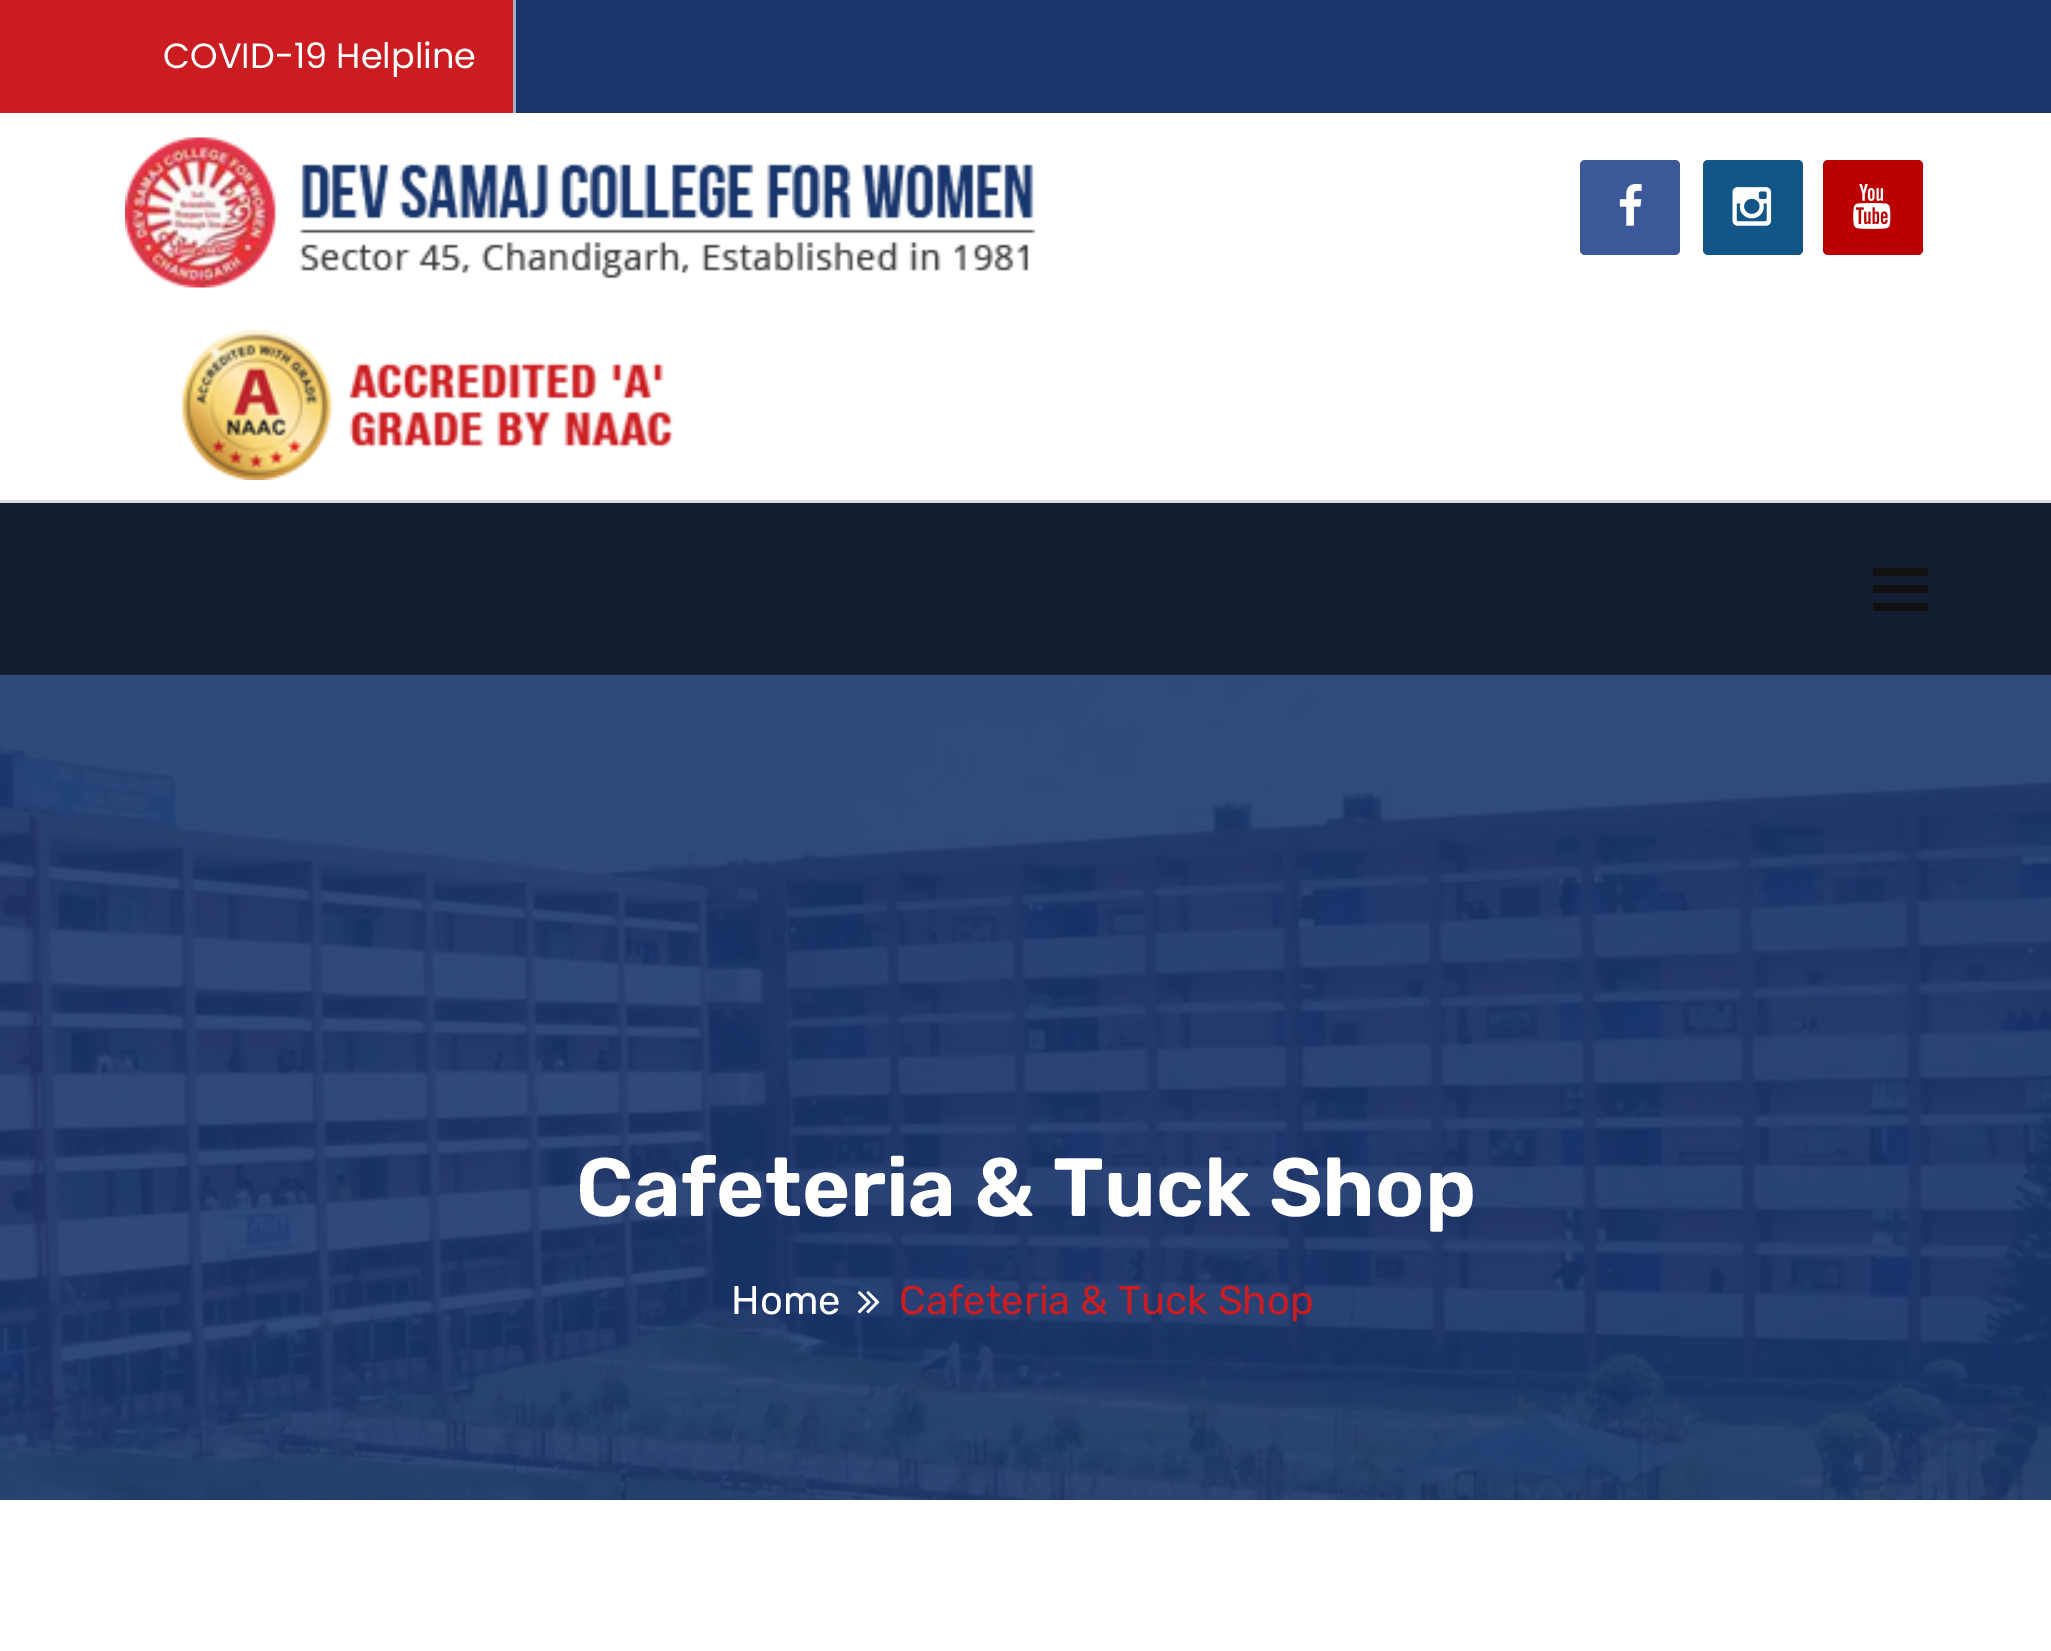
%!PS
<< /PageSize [2051 1651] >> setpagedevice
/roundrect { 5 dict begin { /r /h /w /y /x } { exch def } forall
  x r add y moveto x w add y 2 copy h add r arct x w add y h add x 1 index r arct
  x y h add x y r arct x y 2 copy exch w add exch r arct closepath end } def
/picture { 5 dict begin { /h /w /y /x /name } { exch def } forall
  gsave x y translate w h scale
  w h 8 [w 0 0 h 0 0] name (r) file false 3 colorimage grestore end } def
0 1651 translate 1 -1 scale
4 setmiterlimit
1 setgray
0 0 2051 1651 rectfill
0.098 0.212 0.427 setrgbcolor
516 0 1535 113 rectfill
0.639 0.686 0.773 setrgbcolor
513 0 3 113 rectfill
0.796 0.114 0.129 setrgbcolor
0 0 513 113 rectfill
/Poppins-Regular [35 0 0 -35 0 0] selectfont
1 setgray
163 68 moveto (COVID-19 Helpline) show
(img1.rgb) 125 137 910 151 picture
(img2.rgb) 181 330 492 150 picture
0.231 0.349 0.596 setrgbcolor
1580 160 100 95 5 roundrect fill
(img3.rgb) 1619 183 23 43 picture
0.071 0.337 0.533 setrgbcolor
1703 160 100 95 5 roundrect fill
(img4.rgb) 1732 187 40 39 picture
0.733 0 0 setrgbcolor
1823 160 100 95 5 roundrect fill
(img5.rgb) 1853 183 38 46 picture
0.075 0.118 0.196 setrgbcolor
0 503 2051 172 rectfill
0.867 setgray
0 500 2051 3 rectfill
0.067 setgray
1873 568 55 8 rectfill
1873 585 55 8 rectfill
1873 603 55 8 rectfill
(img6.rgb) 0 675 2051 825 picture
/Rubik-SemiBold [82.5 0 0 -82.5 0 0] selectfont
1 setgray
576 1216 moveto (Cafeteria & Tuck Shop) show
/Rubik-Regular [40 0 0 -40 0 0] selectfont
731 1314 moveto (Home) show
(img7.rgb) 857 1291 23 23 picture
0.796 0.114 0.129 setrgbcolor
899 1314 moveto (Cafeteria & Tuck Shop) show
showpage
